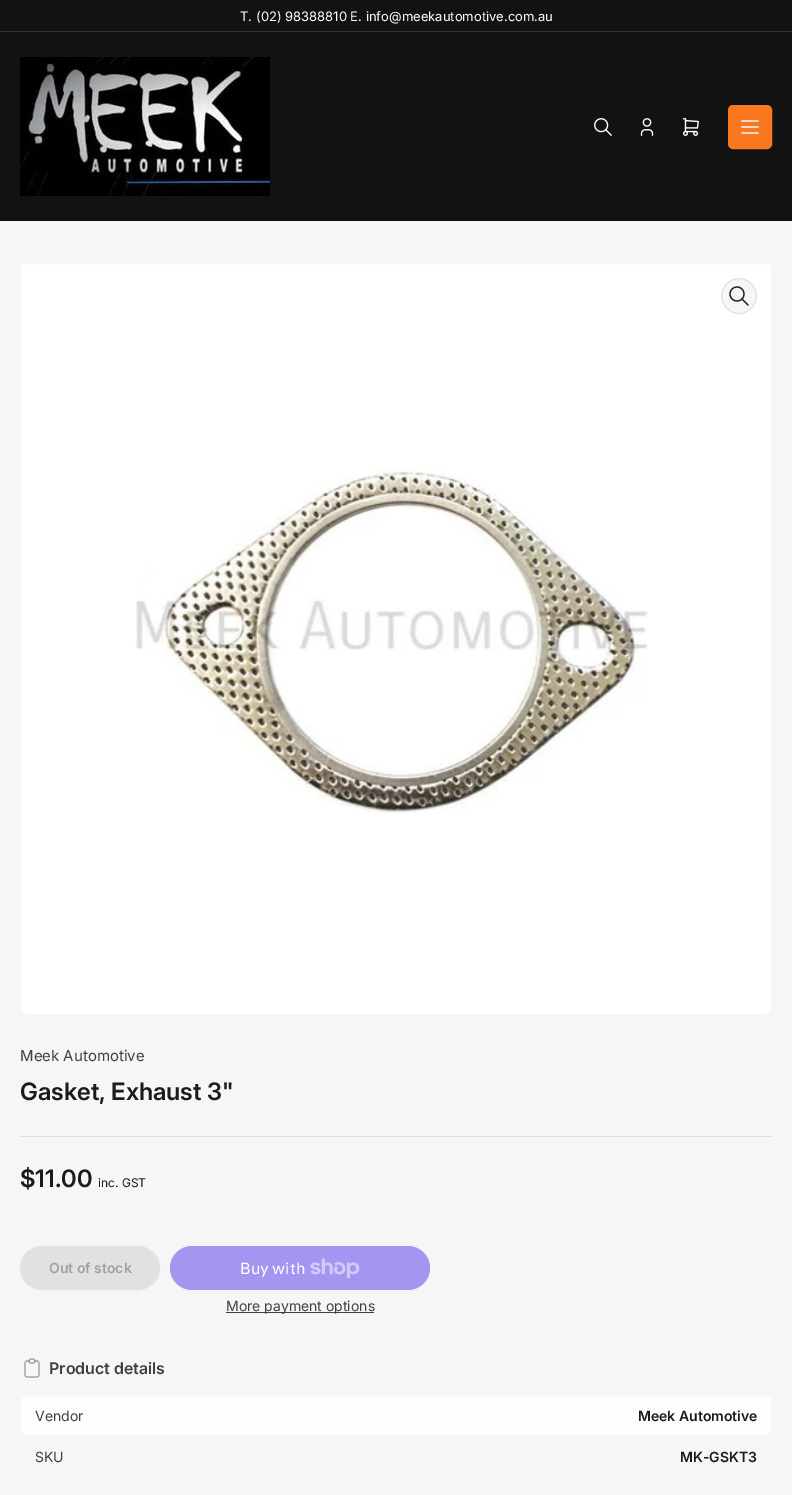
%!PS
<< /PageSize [792 1495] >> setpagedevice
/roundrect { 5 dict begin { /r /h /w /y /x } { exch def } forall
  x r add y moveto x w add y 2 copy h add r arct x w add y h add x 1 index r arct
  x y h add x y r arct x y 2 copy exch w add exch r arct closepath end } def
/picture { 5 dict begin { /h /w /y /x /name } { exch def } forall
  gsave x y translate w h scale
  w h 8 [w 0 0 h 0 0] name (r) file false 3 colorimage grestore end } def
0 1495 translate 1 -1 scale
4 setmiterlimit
0.965 setgray
0 0 792 1495 rectfill
0.071 setgray
0 0 792 31 rectfill
0.192 setgray
0 31 792 1 rectfill
/Inter-Regular [13 0 0 -13 0 0] selectfont
1 setgray
240 21 moveto (T. \(02\) 98388810 E. info@meekautomotive.com.au) show
0.071 setgray
0 32 792 189 rectfill
(img1.rgb) 20 57 250 139 picture
(img2.rgb) 594 118 18 18 picture
(img3.rgb) 640 118 14 18 picture
(img4.rgb) 683 118 16 18 picture
0.976 0.467 0.122 setrgbcolor
728.5 105.5 43 43 4.5 roundrect gsave fill grestore
stroke
(img5.rgb) 741 120 18 14 picture
1 setgray
20.5 263.5 751 751 4.5 roundrect gsave fill grestore
0.965 setgray
stroke
newpath 739 296 17.5 0 360 arc closepath gsave fill grestore
0.882 setgray
stroke
(img6.rgb) 729 286 20 20 picture
(img7.rgb) 135 468 513 346 picture
20 1136 752 1 rectfill
/Inter-Regular [15 0 0 -15 0 0] selectfont
0.251 setgray
20 1061 moveto (Meek Automotive) show
/Inter-SemiBold [24 0 0 -24 0 0] selectfont
0.106 setgray
20 1100 moveto (Gasket, Exhaust 3") show
20 1187 moveto ($11.00) show
/Inter-Regular [12 0 0 -12 0 0] selectfont
98 1187 moveto (inc. GST) show
0.882 setgray
20.5 1246.5 139 43 21.5 roundrect gsave fill grestore
stroke
/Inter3-SemiBold [14 0 0 -14 0 0] selectfont
0.631 setgray
49 1273 moveto (Out of stock) show
0.647 0.584 0.945 setrgbcolor
170 1246 260 44 22 roundrect fill
/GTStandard-Regular [16 0 0 -16 0 0] selectfont
1 setgray
240 1274 moveto (Buy with) show
(img8.rgb) 310 1258 50 20 picture
0.251 setgray
226 1312 148 1 rectfill
/Inter-Regular [14 0 0 -14 0 0] selectfont
226 1311 moveto (More payment options) show
(img9.rgb) 24 1358 16 20 picture
/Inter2-SemiBold [16 0 0 -16 0 0] selectfont
49 1374 moveto (Product details) show
0.992 setgray
20.5 1395.5 751 40 4.5 roundrect gsave fill grestore
0.965 setgray
stroke
/Inter-Regular [14 0 0 -14 0 0] selectfont
0.251 setgray
35 1421 moveto (Vendor) show
/Inter3-SemiBold [14 0 0 -14 0 0] selectfont
0.106 setgray
638 1421 moveto (Meek Automotive) show
/Inter-Regular [14 0 0 -14 0 0] selectfont
0.251 setgray
35 1462 moveto (SKU) show
/Inter3-SemiBold [14 0 0 -14 0 0] selectfont
0.106 setgray
680 1462 moveto (MK-GSKT3) show
showpage
